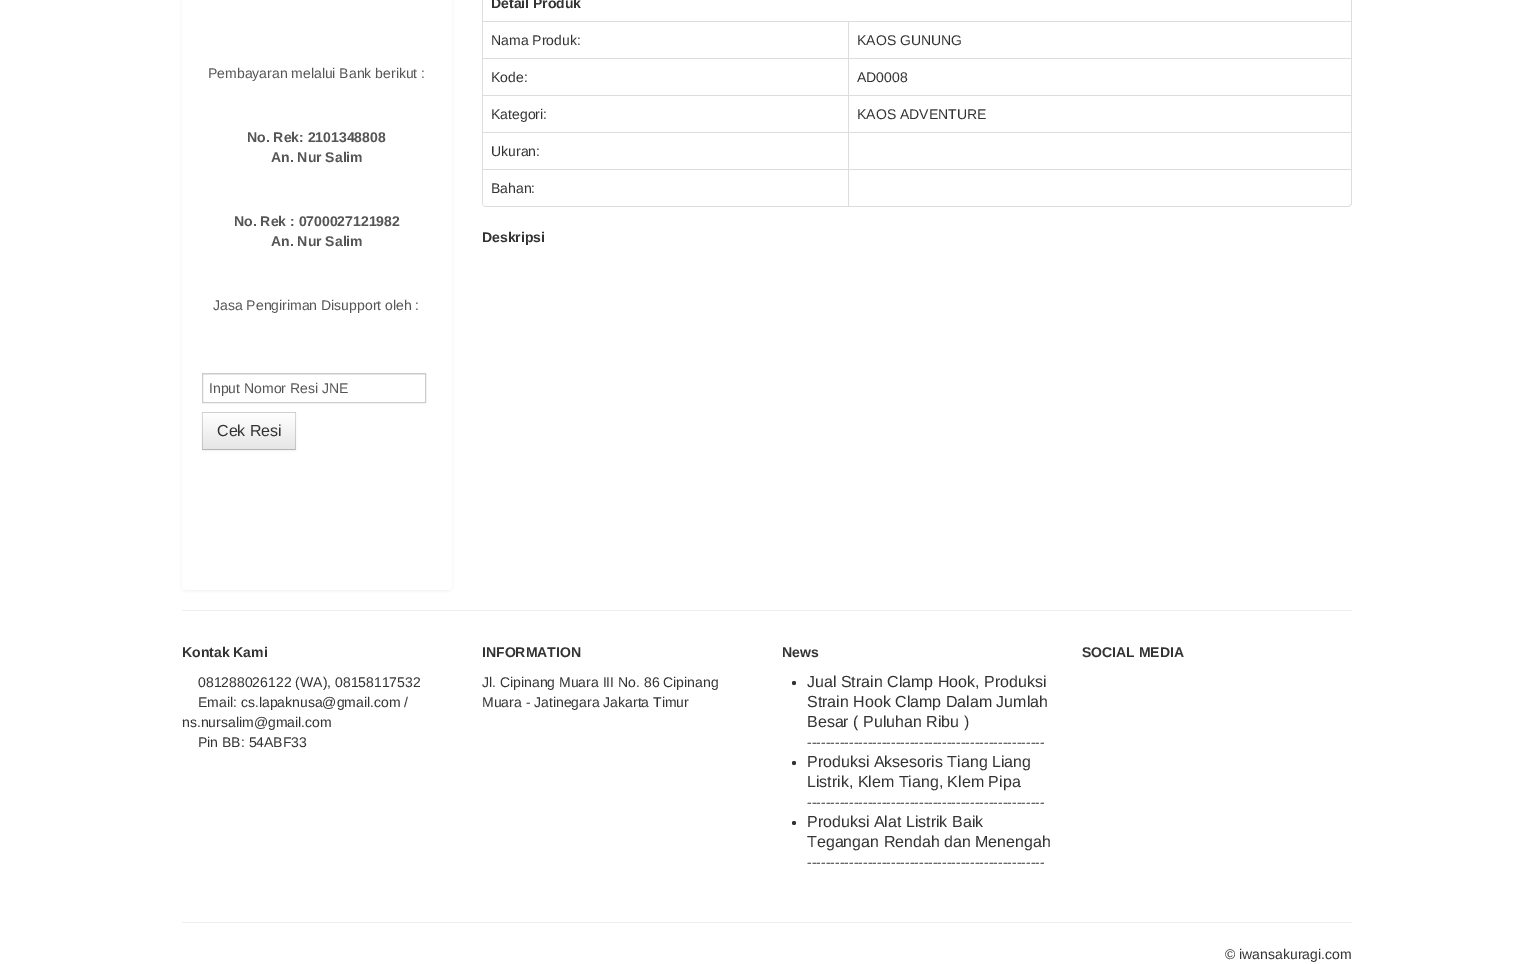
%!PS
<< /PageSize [1533 964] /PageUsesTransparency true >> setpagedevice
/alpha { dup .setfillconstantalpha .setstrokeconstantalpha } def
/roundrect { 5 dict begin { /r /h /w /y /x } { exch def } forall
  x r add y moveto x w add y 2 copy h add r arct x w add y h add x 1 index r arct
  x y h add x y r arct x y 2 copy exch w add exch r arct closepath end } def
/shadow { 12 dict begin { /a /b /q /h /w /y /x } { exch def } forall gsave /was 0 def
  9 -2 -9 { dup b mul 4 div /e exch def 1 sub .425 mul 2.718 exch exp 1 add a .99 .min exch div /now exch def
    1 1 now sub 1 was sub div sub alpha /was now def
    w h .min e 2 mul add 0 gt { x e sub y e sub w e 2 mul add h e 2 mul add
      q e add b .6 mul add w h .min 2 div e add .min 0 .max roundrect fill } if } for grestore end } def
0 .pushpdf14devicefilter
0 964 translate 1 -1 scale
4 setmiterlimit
1 setgray
0 0 1533 964 rectfill
0 setgray
182 -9 270 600 4 1.5 0.06 shadow
1 setgray
182 -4 270 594 4 roundrect fill
/LiberationSans-Regular [14 0 0 -14 0 0] selectfont
0.333 setgray
208 78 moveto (Pembayaran melalui Bank berikut :) show
/LiberationSans-Bold [14 0 0 -14 0 0] selectfont
247 142 moveto (No. Rek: 2101348808) show
271 162 moveto (An. Nur Salim) show
234 226 moveto (No. Rek : 0700027121982) show
271 246 moveto (An. Nur Salim) show
/LiberationSans-Regular [14 0 0 -14 0 0] selectfont
213 310 moveto (Jasa Pengiriman Disupport oleh :) show
0.925 setgray
203 374 222 1 rectfill
0.8 setgray
202.5 373.5 223 29 rectstroke
0.333 setgray
209 393 moveto (Input Nomor Resi JNE) show
0 setgray
202 413 94 38 0 1 0.05 shadow
0.961 setgray
202 412 94 37 rectfill
gsave newpath 202 413 moveto 296 413 lineto 296 449 lineto 202 449 lineto closepath clip newpath
<< /ShadingType 2 /ColorSpace /DeviceRGB /Coords [249 413 249 449] /Extend [true true] /Function << /FunctionType 2 /Domain [0 1] /C0 [1 1 1] /C1 [0.902 0.902 0.902] /N 1 >> >> shfill grestore
0.816 setgray
newpath 202 412 moveto 296 412 lineto 295 413 lineto 203 413 lineto closepath fill
0.15 alpha
0 setgray
newpath 296 412 moveto 296 450 lineto 295 449 lineto 295 413 lineto closepath fill
0.25 alpha
newpath 296 450 moveto 202 450 lineto 203 449 lineto 295 449 lineto closepath fill
0.15 alpha
newpath 202 450 moveto 202 412 lineto 203 413 lineto 203 449 lineto closepath fill
/LiberationSans-Regular [16 0 0 -16 0 0] selectfont
1 alpha
0.2 setgray
217 436 moveto (Cek Resi) show
0.867 setgray
newpath 486 -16 moveto 1348 -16 lineto 1350 -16 1352 -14 1352 -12 curveto 1352 203 lineto 1352 205 1350 207 1348 207 curveto 486 207 lineto 484 207 482 205 482 203 curveto 482 -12 lineto 482 -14 484 -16 486 -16 curveto closepath 486 -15 moveto 1348 -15 lineto 1350 -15 1351 -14 1351 -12 curveto 1351 203 lineto 1351 205 1350 206 1348 206 curveto 486 206 lineto 484 206 482 205 482 203 curveto 482 -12 lineto 482 -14 484 -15 486 -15 curveto closepath eofill
482 0 1 21 rectfill
/LiberationSans-Bold [14 0 0 -14 0 0] selectfont
0.2 setgray
491 8 moveto (Detail Produk) show
0.867 setgray
482 21 869 1 rectfill
482 21 1 37 rectfill
/LiberationSans-Regular [14 0 0 -14 0 0] selectfont
0.2 setgray
491 45 moveto (Nama Produk:) show
0.867 setgray
848 21 1 37 rectfill
0.2 setgray
857 45 moveto (KAOS GUNUNG) show
0.867 setgray
482 58 869 1 rectfill
482 58 1 37 rectfill
0.2 setgray
491 82 moveto (Kode:) show
0.867 setgray
848 58 1 37 rectfill
0.2 setgray
857 82 moveto (AD0008) show
0.867 setgray
482 95 869 1 rectfill
482 95 1 37 rectfill
0.2 setgray
491 119 moveto (Kategori:) show
0.867 setgray
848 95 1 37 rectfill
0.2 setgray
857 119 moveto (KAOS ADVENTURE) show
0.867 setgray
482 132 869 1 rectfill
482 132 1 37 rectfill
0.2 setgray
491 156 moveto (Ukuran:) show
0.867 setgray
848 132 1 37 rectfill
482 169 869 1 rectfill
482 169 1 35 rectfill
0.2 setgray
491 193 moveto (Bahan:) show
0.867 setgray
848 169 1 37 rectfill
/LiberationSans-Bold [14 0 0 -14 0 0] selectfont
0.2 setgray
482 242 moveto (Deskripsi) show
0.933 setgray
182 610 1170 1 rectfill
0.2 setgray
182 657 moveto (Kontak Kami) show
/LiberationSans-Regular [14 0 0 -14 0 0] selectfont
198 687 moveto (081288026122 \(WA\), 08158117532) show
198 707 moveto (Email: cs.lapaknusa@gmail.com /) show
182 727 moveto (ns.nursalim@gmail.com) show
198 747 moveto (Pin BB: 54ABF33) show
/LiberationSans-Bold [14 0 0 -14 0 0] selectfont
482 657 moveto (INFORMATION) show
/LiberationSans-Regular [14 0 0 -14 0 0] selectfont
482 687 moveto (Jl. Cipinang Muara III No. 86 Cipinang) show
482 707 moveto (Muara - Jatinegara Jakarta Timur) show
/LiberationSans-Bold [14 0 0 -14 0 0] selectfont
782 657 moveto (News) show
newpath 794 683 2 0 360 arc closepath fill
/LiberationSans-Regular [16 0 0 -16 0 0] selectfont
807 687 moveto (Jual Strain Clamp Hook, Produksi) show
807 707 moveto (Strain Hook Clamp Dalam Jumlah) show
807 727 moveto (Besar \( Puluhan Ribu \)) show
/LiberationSans-Regular [14 0 0 -14 0 0] selectfont
807 747 moveto (---------------------------------------------------) show
newpath 794 763 2 0 360 arc closepath fill
/LiberationSans-Regular [16 0 0 -16 0 0] selectfont
807 767 moveto (Produksi Aksesoris Tiang Liang) show
807 787 moveto (Listrik, Klem Tiang, Klem Pipa) show
/LiberationSans-Regular [14 0 0 -14 0 0] selectfont
807 807 moveto (---------------------------------------------------) show
newpath 794 823 2 0 360 arc closepath fill
/LiberationSans-Regular [16 0 0 -16 0 0] selectfont
807 827 moveto (Produksi Alat Listrik Baik) show
807 847 moveto (Tegangan Rendah dan Menengah) show
/LiberationSans-Regular [14 0 0 -14 0 0] selectfont
807 867 moveto (---------------------------------------------------) show
/LiberationSans-Bold [14 0 0 -14 0 0] selectfont
1082 657 moveto (SOCIAL MEDIA) show
0.933 setgray
182 922 1170 1 rectfill
/LiberationSans-Regular [14 0 0 -14 0 0] selectfont
0.2 setgray
1225 959 moveto (© iwansakuragi.com) show
.poppdf14devicefilter showpage
